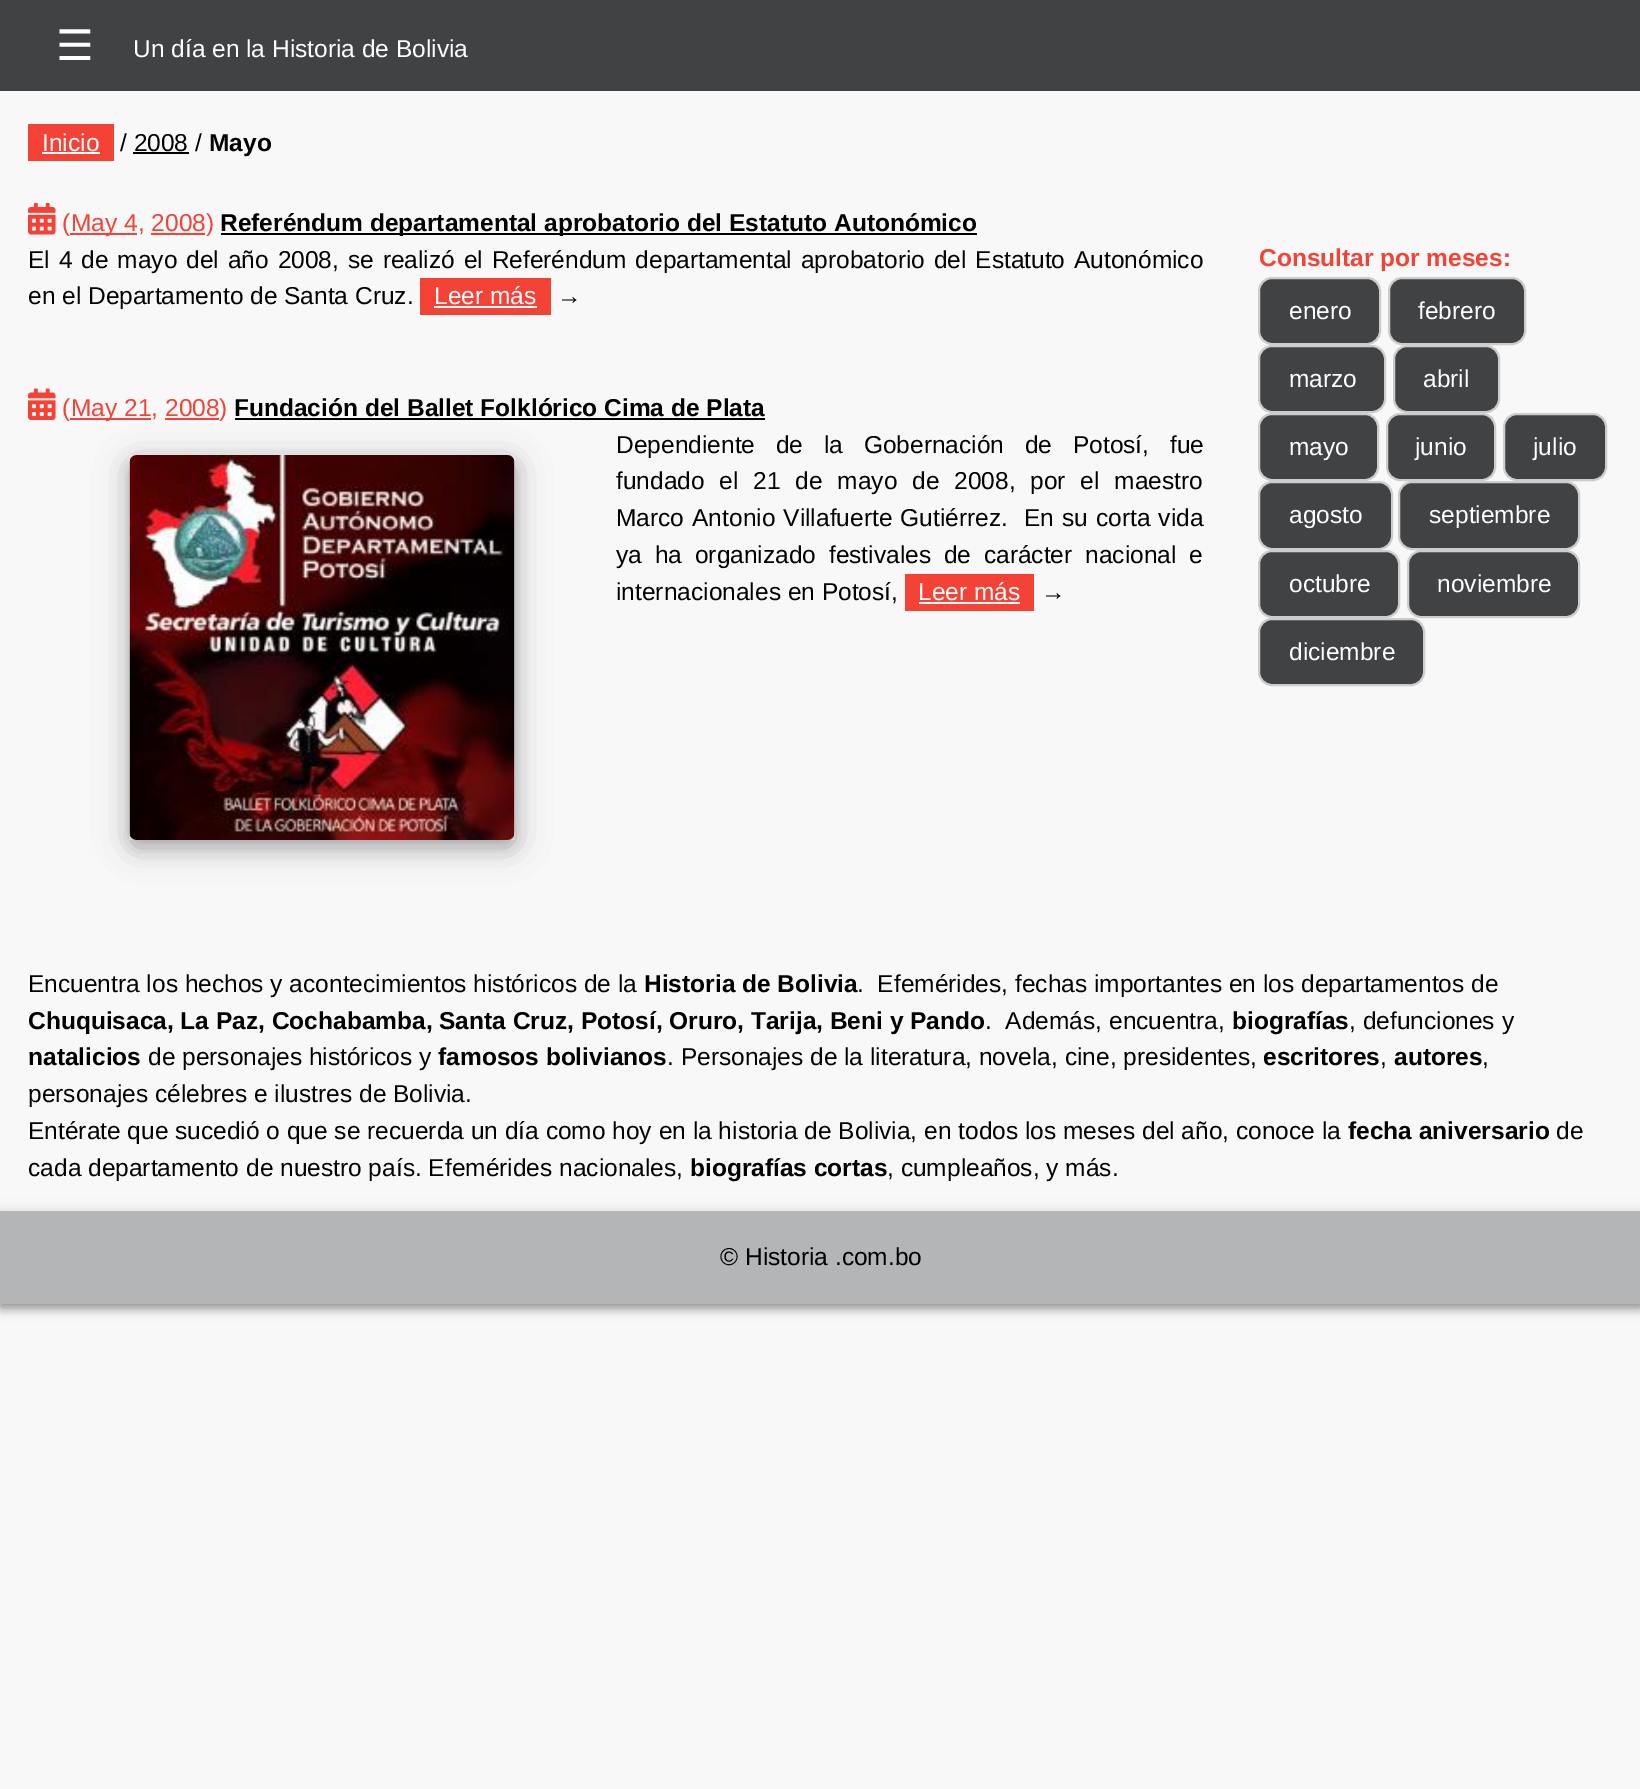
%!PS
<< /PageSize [1640 1789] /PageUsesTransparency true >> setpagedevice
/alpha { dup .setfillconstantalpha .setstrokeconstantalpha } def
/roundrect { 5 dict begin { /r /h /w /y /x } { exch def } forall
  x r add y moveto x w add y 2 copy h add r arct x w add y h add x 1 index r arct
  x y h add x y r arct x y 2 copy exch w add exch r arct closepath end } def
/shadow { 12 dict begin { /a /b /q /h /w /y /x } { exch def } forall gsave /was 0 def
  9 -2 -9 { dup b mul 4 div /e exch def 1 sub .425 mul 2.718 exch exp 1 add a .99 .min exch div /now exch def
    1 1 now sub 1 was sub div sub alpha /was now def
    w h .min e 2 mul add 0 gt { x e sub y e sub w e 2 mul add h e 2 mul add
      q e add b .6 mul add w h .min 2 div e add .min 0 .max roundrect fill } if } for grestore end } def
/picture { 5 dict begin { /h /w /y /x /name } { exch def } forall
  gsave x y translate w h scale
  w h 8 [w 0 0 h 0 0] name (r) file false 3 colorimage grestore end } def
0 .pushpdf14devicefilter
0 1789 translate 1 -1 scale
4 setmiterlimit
0.973 setgray
0 0 1640 1789 rectfill
gsave
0 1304 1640 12 rectclip
0 setgray
0 4 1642 1303 0 9 0.12 shadow
grestore
gsave
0 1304 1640 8 rectclip
0 setgray
0 4 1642 1303 0 4.5 0.16 shadow
grestore
0.255 0.259 0.267 setrgbcolor
0 0 1640 91 rectfill
/DejaVuSans-Regular [42 0 0 -42 0 0] selectfont
1 setgray
56 60 moveto (☰) show
/LiberationSans-Regular [24.5 0 0 -24.5 0 0] selectfont
133 57 moveto (Un día en la Historia de Bolivia) show
0.957 0.263 0.212 setrgbcolor
28 124 86 37 rectfill
1 setgray
42 151 moveto (Inicio) show
42 152 58 2 rectfill
0 setgray
120 151 moveto (/ 2008 /) show
/LiberationSans-Bold [24.5 0 0 -24.5 0 0] selectfont
209 151 moveto (Mayo) show
133 152 56 2 rectfill
(img1.rgb) 28 203 28 32 picture
/LiberationSans-Regular [24.5 0 0 -24.5 0 0] selectfont
0.957 0.263 0.212 setrgbcolor
62 231 moveto (\() show
70 233 67 2 rectfill
71 231 moveto (May 4, 2008\)) show
151 233 54 2 rectfill
0 setgray
221 233 756 2 rectfill
/LiberationSans-Bold [24.5 0 0 -24.5 0 0] selectfont
220 231 moveto (Referéndum departamental aprobatorio del Estatuto Autonómico) show
/LiberationSans-Regular [24.5 0 0 -24.5 0 0] selectfont
28 268 moveto 2.1 0 32 (El 4 de mayo del año 2008, se realizó el Referéndum departamental aprobatorio del Estatuto Autonómico) widthshow
28 304 moveto (en el Departamento de Santa Cruz.) show
0.957 0.263 0.212 setrgbcolor
420 278 131 37 rectfill
1 setgray
434 304 moveto (Leer más) show
434 306 103 2 rectfill
0 setgray
557 304 moveto (→) show
(img2.rgb) 28 388 28 32 picture
0.957 0.263 0.212 setrgbcolor
62 416 moveto (\() show
0 setgray
130 462 385 385 7 17.5 0.19 shadow
0.957 0.263 0.212 setrgbcolor
70 418 81 2 rectfill
71 416 moveto (May 21, 2008\)) show
165 418 54 2 rectfill
/LiberationSans-Bold [24.5 0 0 -24.5 0 0] selectfont
0 setgray
234 416 moveto (Fundación del Ballet Folklórico Cima de Plata) show
235 418 530 2 rectfill
130 462 385 385 7 9 0.2 shadow
(img3.rgb) 129 455 386 385 picture
/LiberationSans-Regular [24.5 0 0 -24.5 0 0] selectfont
616 453 moveto 14 0 32 (Dependiente de la Gobernación de Potosí, fue) widthshow
616 489 moveto 8 0 32 (fundado el 21 de mayo de 2008, por el maestro) widthshow
616 526 moveto 1.25 0 32 (Marco Antonio Villafuerte Gutiérrez.  En su corta vida) widthshow
616 563 moveto 6 0 32 (ya ha organizado festivales de carácter nacional e) widthshow
616 600 moveto (internacionales en Potosí,) show
0.957 0.263 0.212 setrgbcolor
905 574 129 37 rectfill
1 setgray
918 600 moveto (Leer más) show
919 602 101 2 rectfill
0 setgray
1041 600 moveto (→) show
/LiberationSans-Bold [24.5 0 0 -24.5 0 0] selectfont
0.957 0.263 0.212 setrgbcolor
1259 266 moveto (Consultar por meses:) show
0.255 0.259 0.267 setrgbcolor
1259 278 121 66 13 roundrect gsave fill grestore
0.8 setgray
2 setlinewidth
stroke
/LiberationSans-Regular [24.5 0 0 -24.5 0 0] selectfont
1 setgray
1289 319 moveto (enero) show
0.255 0.259 0.267 setrgbcolor
1389 278 136 66 13 roundrect gsave fill grestore
0.8 setgray
stroke
1 setgray
1418 319 moveto (febrero) show
0.255 0.259 0.267 setrgbcolor
1259 346 126 66 13 roundrect gsave fill grestore
0.8 setgray
stroke
1 setgray
1289 387 moveto (marzo) show
0.255 0.259 0.267 setrgbcolor
1394 346 105 66 13 roundrect gsave fill grestore
0.8 setgray
stroke
1 setgray
1423 387 moveto (abril) show
0.255 0.259 0.267 setrgbcolor
1259 414 119 66 13 roundrect gsave fill grestore
0.8 setgray
stroke
1 setgray
1289 455 moveto (mayo) show
0.255 0.259 0.267 setrgbcolor
1387 414 108 66 13 roundrect gsave fill grestore
0.8 setgray
stroke
1 setgray
1415 455 moveto (junio) show
0.255 0.259 0.267 setrgbcolor
1504 414 102 66 13 roundrect gsave fill grestore
0.8 setgray
stroke
1 setgray
1533 455 moveto (julio) show
0.255 0.259 0.267 setrgbcolor
1259 482 133 67 13 roundrect gsave fill grestore
0.8 setgray
stroke
1 setgray
1289 523 moveto (agosto) show
0.255 0.259 0.267 setrgbcolor
1399 482 180 67 13 roundrect gsave fill grestore
0.8 setgray
stroke
1 setgray
1429 523 moveto (septiembre) show
0.255 0.259 0.267 setrgbcolor
1259 551 140 66 13 roundrect gsave fill grestore
0.8 setgray
stroke
1 setgray
1289 592 moveto (octubre) show
0.255 0.259 0.267 setrgbcolor
1408 551 171 66 13 roundrect gsave fill grestore
0.8 setgray
stroke
1 setgray
1437 592 moveto (noviembre) show
0.255 0.259 0.267 setrgbcolor
1259 619 165 66 13 roundrect gsave fill grestore
0.8 setgray
stroke
1 setgray
1289 660 moveto (diciembre) show
0 setgray
28 992 moveto (Encuentra los hechos y acontecimientos históricos de la) show
/LiberationSans-Bold [24.5 0 0 -24.5 0 0] selectfont
644 992 moveto (Historia de Bolivia) show
/LiberationSans-Regular [24.5 0 0 -24.5 0 0] selectfont
857 992 moveto (.  Efemérides, fechas importantes en los departamentos de) show
/LiberationSans-Bold [24.5 0 0 -24.5 0 0] selectfont
28 1029 moveto (Chuquisaca, La Paz, Cochabamba, Santa Cruz, Potosí, Oruro, Tarija, Beni y Pando) show
/LiberationSans-Regular [24.5 0 0 -24.5 0 0] selectfont
985 1029 moveto (.  Además, encuentra,) show
/LiberationSans-Bold [24.5 0 0 -24.5 0 0] selectfont
1232 1029 moveto (biografías) show
/LiberationSans-Regular [24.5 0 0 -24.5 0 0] selectfont
1349 1029 moveto (, defunciones y) show
/LiberationSans-Bold [24.5 0 0 -24.5 0 0] selectfont
28 1065 moveto (natalicios) show
/LiberationSans-Regular [24.5 0 0 -24.5 0 0] selectfont
148 1065 moveto (de personajes históricos y) show
/LiberationSans-Bold [24.5 0 0 -24.5 0 0] selectfont
438 1065 moveto (famosos bolivianos) show
/LiberationSans-Regular [24.5 0 0 -24.5 0 0] selectfont
667 1065 moveto (. Personajes de la literatura, novela, cine, presidentes,) show
/LiberationSans-Bold [24.5 0 0 -24.5 0 0] selectfont
1263 1065 moveto (escritores) show
/LiberationSans-Regular [24.5 0 0 -24.5 0 0] selectfont
1380 1065 moveto (,) show
/LiberationSans-Bold [24.5 0 0 -24.5 0 0] selectfont
1394 1065 moveto (autores) show
/LiberationSans-Regular [24.5 0 0 -24.5 0 0] selectfont
1482 1065 moveto (,) show
28 1102 moveto (personajes célebres e ilustres de Bolivia.) show
28 1139 moveto (Entérate que sucedió o que se recuerda un día como hoy en la historia de Bolivia, en todos los meses del año, conoce la) show
/LiberationSans-Bold [24.5 0 0 -24.5 0 0] selectfont
1348 1139 moveto (fecha aniversario) show
/LiberationSans-Regular [24.5 0 0 -24.5 0 0] selectfont
1556 1139 moveto (de) show
28 1176 moveto (cada departamento de nuestro país. Efemérides nacionales,) show
/LiberationSans-Bold [24.5 0 0 -24.5 0 0] selectfont
690 1176 moveto (biografías cortas) show
/LiberationSans-Regular [24.5 0 0 -24.5 0 0] selectfont
887 1176 moveto (, cumpleaños, y más.) show
0 1215 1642 92 0 9 0.12 shadow
0 1215 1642 92 0 4.5 0.16 shadow
0.706 0.71 0.718 setrgbcolor
0 1211 1640 93 rectfill
0 setgray
720 1265 moveto (© Historia .com.bo) show
.poppdf14devicefilter showpage
